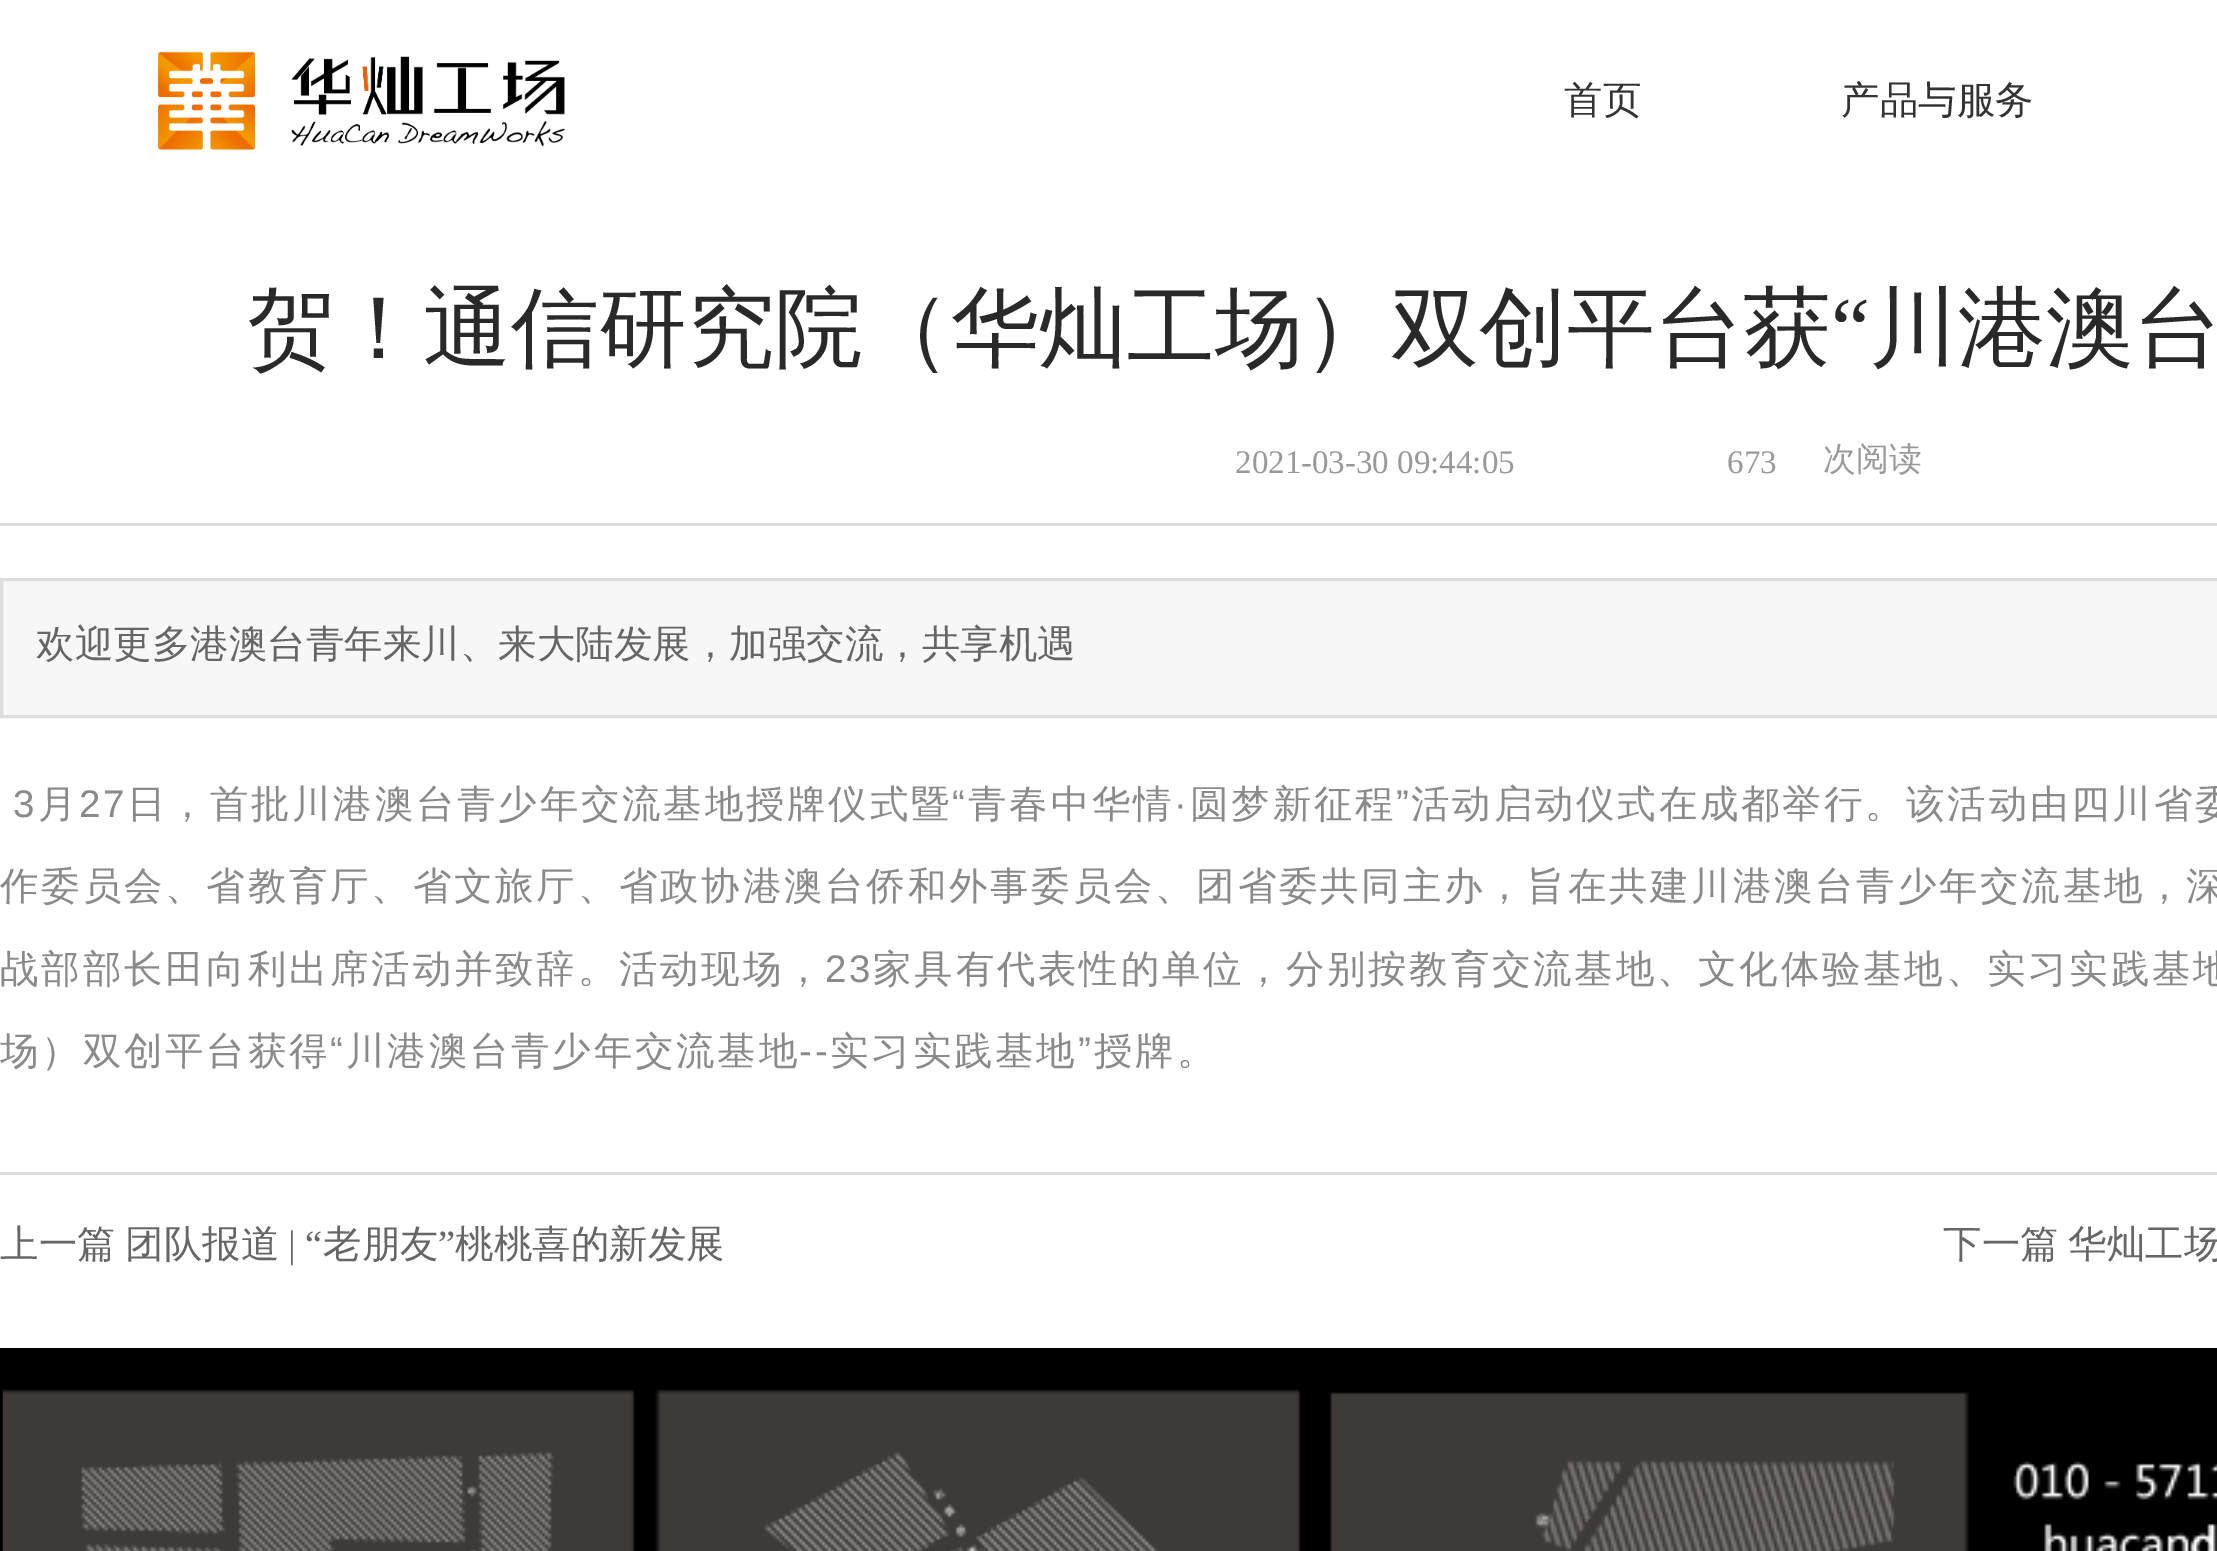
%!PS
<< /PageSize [2217 1551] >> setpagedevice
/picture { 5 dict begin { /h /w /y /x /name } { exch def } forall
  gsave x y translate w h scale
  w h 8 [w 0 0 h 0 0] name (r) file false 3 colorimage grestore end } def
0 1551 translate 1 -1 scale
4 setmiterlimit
1 setgray
0 0 2217 1551 rectfill
(img1.rgb) 158 51 407 99 picture
/WenQuanYiZenHei-Medium [38.5 0 0 -38.5 0 0] selectfont
0.2 setgray
1564 113 moveto (首页) show
1841 113 moveto (产品与服务) show
/WenQuanYiZenHei-Medium [88 0 0 -88 0 0] selectfont
0.161 setgray
247 358 moveto (贺！通信研究院（华灿工场）双创平台获) show
/LiberationSerif-Regular [88 0 0 -88 0 0] selectfont
1831 358 moveto (“) show
/WenQuanYiZenHei-Medium [88 0 0 -88 0 0] selectfont
1870 358 moveto (川港澳台) show
/LiberationSerif-Regular [33 0 0 -33 0 0] selectfont
0.6 setgray
1235 473 moveto (2021-03-30 09:44:05) show
1727 473 moveto (673) show
/WenQuanYiZenHei-Medium [33 0 0 -33 0 0] selectfont
1823 470 moveto (次阅读) show
0.867 setgray
0 523 2217 3 rectfill
0.969 setgray
newpath 1.5 579.5 moveto 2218.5 579.5 lineto 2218.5 716.5 lineto 1.5 716.5 lineto closepath gsave fill grestore
0.867 setgray
3 setlinewidth
stroke
/WenQuanYiZenHei-Medium [38.5 0 0 -38.5 0 0] selectfont
0.4 setgray
36 657 moveto (欢迎更多港澳台青年来川、来大陆发展，加强交流，共享机遇) show
/LiberationSans-Regular [38.5 0 0 -38.5 0 0] selectfont
0.541 setgray
13 817 moveto 2.75 0 (3) ashow
/WenQuanYiZenHei-Medium [38.5 0 0 -38.5 0 0] selectfont
38 817 moveto 2.75 0 (月) ashow
/LiberationSans-Regular [38.5 0 0 -38.5 0 0] selectfont
79 817 moveto 2.75 0 (27) ashow
/WenQuanYiZenHei-Medium [38.5 0 0 -38.5 0 0] selectfont
127 817 moveto 2.75 0 (日，首批川港澳台青少年交流基地授牌仪式暨) ashow
/LiberationSans-Regular [38.5 0 0 -38.5 0 0] selectfont
952 817 moveto 2.75 0 (“) ashow
/WenQuanYiZenHei-Medium [38.5 0 0 -38.5 0 0] selectfont
968 817 moveto 2.75 0 (青春中华情) ashow
1190 817 moveto 2.75 0 (圆梦新征程) ashow
/LiberationSans-Regular [38.5 0 0 -38.5 0 0] selectfont
1396 817 moveto 2.75 0 (”) ashow
/WenQuanYiZenHei-Medium [38.5 0 0 -38.5 0 0] selectfont
1411 817 moveto 2.75 0 (活动启动仪式在成都举行。该活动由四川省委) ashow
/LiberationSans-Regular [38.5 0 0 -38.5 0 0] selectfont
1174 817 moveto 2.75 0 (·) ashow
/WenQuanYiZenHei-Medium [38.5 0 0 -38.5 0 0] selectfont
0 899 moveto 2.75 0 (作委员会、省教育厅、省文旅厅、省政协港澳台侨和外事委员会、团省委共同主办，旨在共建川港澳台青少年交流基地，深) ashow
0 982 moveto 2.75 0 (战部部长田向利出席活动并致辞。活动现场，) ashow
/LiberationSans-Regular [38.5 0 0 -38.5 0 0] selectfont
825 982 moveto 2.75 0 (23) ashow
/WenQuanYiZenHei-Medium [38.5 0 0 -38.5 0 0] selectfont
873 982 moveto 2.75 0 (家具有代表性的单位，分别按教育交流基地、文化体验基地、实习实践基地) ashow
0 1064 moveto 2.75 0 (场）双创平台获得) ashow
/LiberationSans-Regular [38.5 0 0 -38.5 0 0] selectfont
330 1064 moveto 2.75 0 (“) ashow
/WenQuanYiZenHei-Medium [38.5 0 0 -38.5 0 0] selectfont
346 1064 moveto 2.75 0 (川港澳台青少年交流基地) ashow
830 1064 moveto 2.75 0 (实习实践基地) ashow
/LiberationSans-Regular [38.5 0 0 -38.5 0 0] selectfont
1078 1064 moveto 2.75 0 (”) ashow
/WenQuanYiZenHei-Medium [38.5 0 0 -38.5 0 0] selectfont
1094 1064 moveto 2.75 0 (授牌。) ashow
/LiberationSans-Regular [38.5 0 0 -38.5 0 0] selectfont
799 1064 moveto 2.75 0 (--) ashow
0.867 setgray
0 1172 2217 3 rectfill
/WenQuanYiZenHei-Medium [38.5 0 0 -38.5 0 0] selectfont
0.4 setgray
0 1257 moveto (上一篇) show
125 1257 moveto (团队报道) show
/LiberationSerif-Regular [38.5 0 0 -38.5 0 0] selectfont
288 1257 moveto (| “) show
/WenQuanYiZenHei-Medium [38.5 0 0 -38.5 0 0] selectfont
323 1257 moveto (老朋友) show
/LiberationSerif-Regular [38.5 0 0 -38.5 0 0] selectfont
438 1257 moveto (”) show
/WenQuanYiZenHei-Medium [38.5 0 0 -38.5 0 0] selectfont
455 1257 moveto (桃桃喜的新发展) show
1943 1257 moveto (下一篇) show
2068 1257 moveto (华灿工场) show
0 setgray
0 1348 2217 203 rectfill
(img2.rgb) 2 1389 2215 162 picture
showpage
